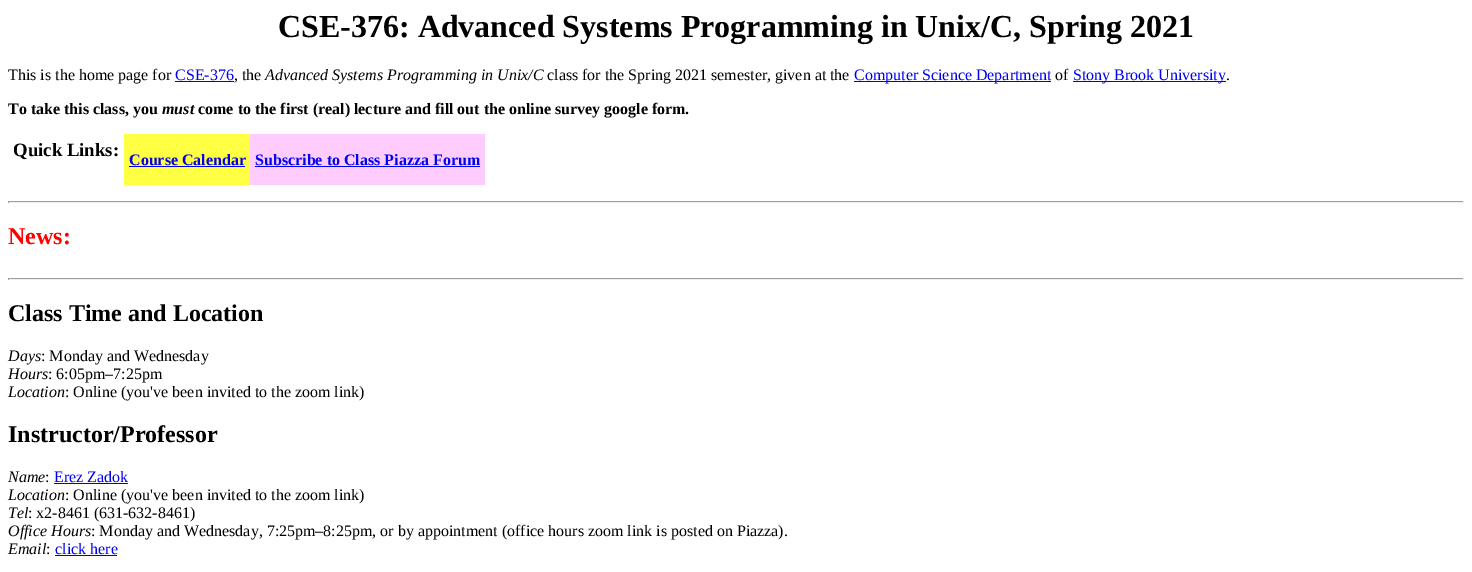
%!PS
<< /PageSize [1472 572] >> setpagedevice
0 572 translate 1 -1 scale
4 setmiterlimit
1 setgray
0 0 1472 572 rectfill
/LiberationSerif-Bold [32 0 0 -32 0 0] selectfont
0 setgray
278 37 moveto (CSE-376: Advanced Systems Programming in Unix/C, Spring 2021) show
/LiberationSerif-Regular [16 0 0 -16 0 0] selectfont
8 80 moveto (This is the home page for) show
0 0 0.933 setrgbcolor
175 80 moveto (CSE-376) show
175 81 59 1 rectfill
0 setgray
234 80 moveto (, the) show
/LiberationSerif-Italic [16 0 0 -16 0 0] selectfont
265 80 moveto (Advanced Systems Programming in Unix/C) show
/LiberationSerif-Regular [16 0 0 -16 0 0] selectfont
547 80 moveto (class for the Spring 2021 semester, given at the) show
0 0 0.933 setrgbcolor
854 81 197 1 rectfill
854 80 moveto (Computer Science Department) show
0 setgray
1055 80 moveto (of) show
0 0 0.933 setrgbcolor
1073 81 153 1 rectfill
1073 80 moveto (Stony Brook University) show
0 setgray
1226 80 moveto (.) show
/LiberationSerif-Bold [16 0 0 -16 0 0] selectfont
8 114 moveto (To take this class, you) show
/LiberationSerif-BoldItalic [16 0 0 -16 0 0] selectfont
162 114 moveto (must) show
/LiberationSerif-Bold [16 0 0 -16 0 0] selectfont
198 114 moveto (come to the first \(real\) lecture and fill out the online survey google form.) show
/LiberationSerif-Bold [18.75 0 0 -18.75 0 0] selectfont
13 156 moveto (Quick Links:) show
1 1 0.267 setrgbcolor
124 134 126 51 rectfill
/LiberationSerif-Bold [16 0 0 -16 0 0] selectfont
0 0 0.933 setrgbcolor
129 165 moveto (Course Calendar) show
129 166 116 1 rectfill
1 0.8 1 setrgbcolor
250 134 235 51 rectfill
0 0 0.933 setrgbcolor
255 165 moveto (Subscribe to Class Piazza Forum) show
255 166 225 1 rectfill
0.624 setgray
8 201 1456 1 rectfill
0.933 setgray
1463 201 1 2 rectfill
8 202 1456 1 rectfill
0.624 setgray
8 201 1 2 rectfill
/LiberationSerif-Bold [24 0 0 -24 0 0] selectfont
1 0 0 setrgbcolor
8 244 moveto (News:) show
0.624 setgray
8 278 1456 1 rectfill
0.933 setgray
1463 278 1 2 rectfill
8 279 1456 1 rectfill
0.624 setgray
8 278 1 2 rectfill
0 setgray
8 321 moveto (Class Time and Location) show
/LiberationSerif-Italic [16 0 0 -16 0 0] selectfont
8 361 moveto (Days) show
/LiberationSerif-Regular [16 0 0 -16 0 0] selectfont
41 361 moveto (: Monday and Wednesday) show
/LiberationSerif-Italic [16 0 0 -16 0 0] selectfont
8 379 moveto (Hours) show
/LiberationSerif-Regular [16 0 0 -16 0 0] selectfont
48 379 moveto (: 6:05pm–7:25pm) show
/LiberationSerif-Italic [16 0 0 -16 0 0] selectfont
8 397 moveto (Location) show
/LiberationSerif-Regular [16 0 0 -16 0 0] selectfont
65 397 moveto (: Online \(you've been invited to the zoom link\)) show
/LiberationSerif-Bold [24 0 0 -24 0 0] selectfont
8 442 moveto (Instructor/Professor) show
/LiberationSerif-Italic [16 0 0 -16 0 0] selectfont
8 482 moveto (Name) show
/LiberationSerif-Regular [16 0 0 -16 0 0] selectfont
45 482 moveto (:) show
0 0 0.933 setrgbcolor
54 482 moveto (Erez Zadok) show
54 483 74 1 rectfill
/LiberationSerif-Italic [16 0 0 -16 0 0] selectfont
0 setgray
8 500 moveto (Location) show
/LiberationSerif-Regular [16 0 0 -16 0 0] selectfont
65 500 moveto (: Online \(you've been invited to the zoom link\)) show
/LiberationSerif-Italic [16 0 0 -16 0 0] selectfont
8 518 moveto (Tel) show
/LiberationSerif-Regular [16 0 0 -16 0 0] selectfont
28 518 moveto (: x2-8461 \(631-632-8461\)) show
/LiberationSerif-Italic [16 0 0 -16 0 0] selectfont
8 536 moveto (Office Hours) show
/LiberationSerif-Regular [16 0 0 -16 0 0] selectfont
91 536 moveto (: Monday and Wednesday, 7:25pm–8:25pm, or by appointment \(office hours zoom link is posted on Piazza\).) show
/LiberationSerif-Italic [16 0 0 -16 0 0] selectfont
8 554 moveto (Email) show
/LiberationSerif-Regular [16 0 0 -16 0 0] selectfont
46 554 moveto (:) show
0 0 0.933 setrgbcolor
55 554 moveto (click here) show
55 555 62 1 rectfill
showpage
